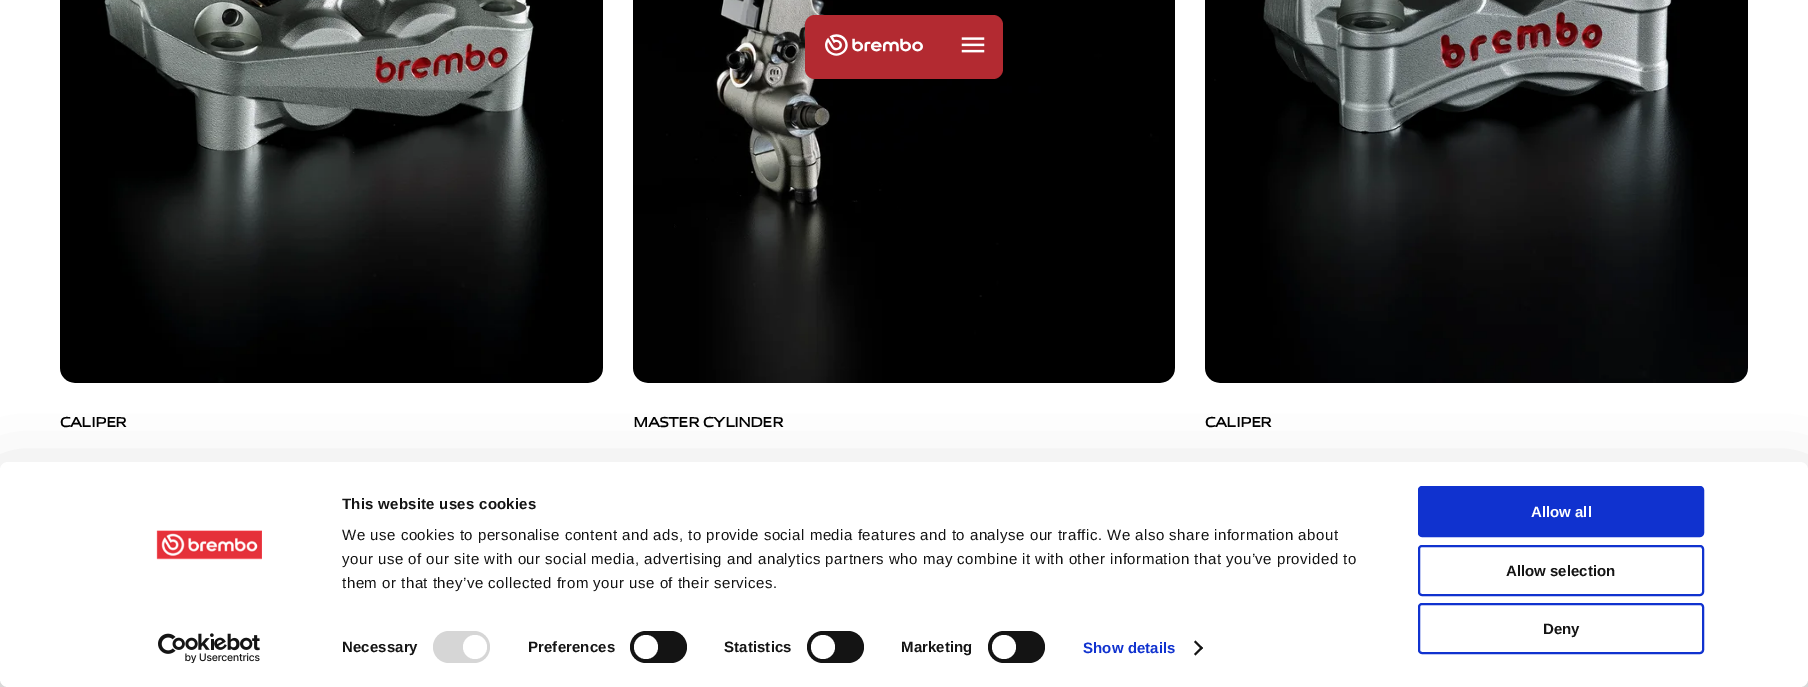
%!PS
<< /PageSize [1808 687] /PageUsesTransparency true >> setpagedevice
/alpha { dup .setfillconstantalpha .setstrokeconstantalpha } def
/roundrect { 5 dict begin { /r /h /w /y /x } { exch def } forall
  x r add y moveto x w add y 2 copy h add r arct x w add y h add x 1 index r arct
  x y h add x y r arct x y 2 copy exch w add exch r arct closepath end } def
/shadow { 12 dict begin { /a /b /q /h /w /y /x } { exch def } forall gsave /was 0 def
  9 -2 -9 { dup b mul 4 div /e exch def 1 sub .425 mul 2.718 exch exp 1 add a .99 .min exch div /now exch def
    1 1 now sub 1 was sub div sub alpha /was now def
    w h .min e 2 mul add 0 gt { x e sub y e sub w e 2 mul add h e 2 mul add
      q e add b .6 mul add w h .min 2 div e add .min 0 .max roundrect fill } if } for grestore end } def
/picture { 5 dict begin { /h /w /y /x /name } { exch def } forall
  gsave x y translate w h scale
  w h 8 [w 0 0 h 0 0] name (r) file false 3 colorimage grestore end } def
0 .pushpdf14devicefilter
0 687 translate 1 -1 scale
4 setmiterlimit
1 setgray
0 0 1808 687 rectfill
(img4.rgb) 633 0 542 383 picture
0.702 0.165 0.192 setrgbcolor
805 15 198 64 10 roundrect fill
(img1.rgb) 825 34 98 22 picture
(img2.rgb) 961 37 24 16 picture
(img3.rgb) 60 0 543 383 picture
/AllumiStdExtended-Bold [14 0 0 -14 0 0] selectfont
0.004 setgray
60 427 moveto -0.75 0 (CALIPER) ashow
633 427 moveto -0.75 0 (MASTER CYLINDER) ashow
(img5.rgb) 1205 0 543 383 picture
1205 427 moveto -0.75 0 (CALIPER) ashow
0 setgray
0 492 1808 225 8 35 0.3 shadow
1 setgray
0 462 1808 225 8 roundrect fill
(img6.rgb) 156 530 106 30 picture
(img7.rgb) 158 633 102 30 picture
/LiberationSans-Bold [15 0 0 -15 0 0] selectfont
0.078 setgray
342 509 moveto 0.25 0 (This website uses cookies) ashow
/LiberationSans-Regular [15 0 0 -15 0 0] selectfont
342 540 moveto 0.5 0 (We use cookies to personalise content and ads, to provide social media features and to analyse our traffic. We also share information about) ashow
342 564 moveto 0.5 0 (your use of our site with our social media, advertising and analytics partners who may combine it with other information that you’ve provided to) ashow
342 588 moveto 0.5 0 (them or that they’ve collected from your use of their services.) ashow
/LiberationSans-Bold [15 0 0 -15 0 0] selectfont
342 652 moveto 0.1 0 (Necessary) ashow
0.839 setgray
433 631 57 32 16 roundrect fill
1 setgray
newpath 475 647 12 0 360 arc closepath fill
0.078 setgray
528 652 moveto 0.1 0 (Preferences) ashow
630 631 57 32 16 roundrect fill
1 setgray
newpath 646 647 12 0 360 arc closepath fill
0.078 setgray
724 652 moveto 0.1 0 (Statistics) ashow
807 631 57 32 16 roundrect fill
1 setgray
newpath 823 647 12 0 360 arc closepath fill
0.078 setgray
901 652 moveto 0.1 0 (Marketing) ashow
988 631 57 32 16 roundrect fill
1 setgray
newpath 1004 647 12 0 360 arc closepath fill
0.063 0.196 0.812 setrgbcolor
1083 653 moveto 0.1 0 (Show details) ashow
0.078 setgray
newpath 1195.5 640.5 moveto 1203 648 lineto 1201.5 649.5 lineto 1194 642 lineto closepath fill
newpath 1201.5 646.5 moveto 1203 648 lineto 1195.5 655.5 lineto 1194 654 lineto closepath fill
0.063 0.196 0.812 setrgbcolor
1419 487 284 49 3 roundrect gsave fill grestore
2 setlinewidth
stroke
1 setgray
1531 517 moveto (Allow all) show
0.063 0.196 0.812 setrgbcolor
1419 546 284 49 3 roundrect stroke
0.078 setgray
1506 576 moveto (Allow selection) show
0.063 0.196 0.812 setrgbcolor
1419 604 284 49 3 roundrect stroke
0.078 setgray
1543 634 moveto (Deny) show
.poppdf14devicefilter showpage
